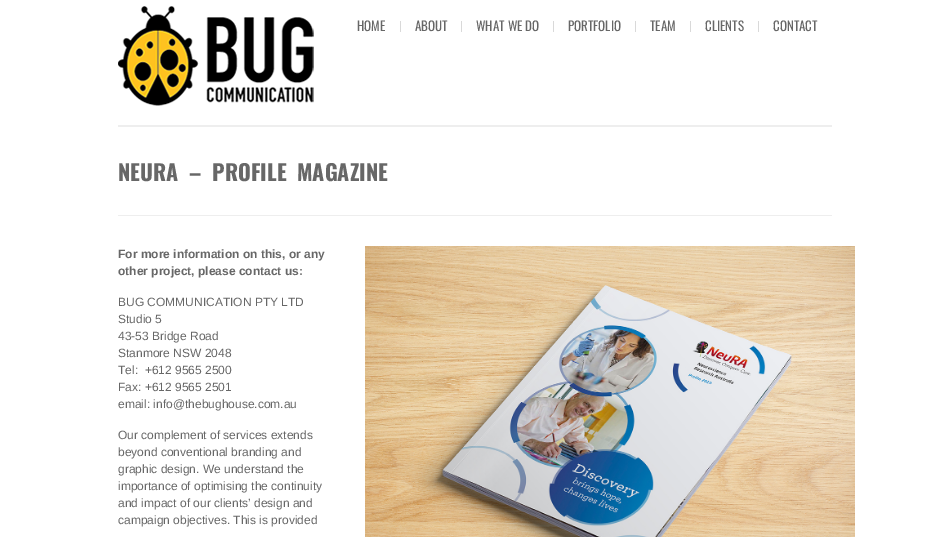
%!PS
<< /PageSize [950 537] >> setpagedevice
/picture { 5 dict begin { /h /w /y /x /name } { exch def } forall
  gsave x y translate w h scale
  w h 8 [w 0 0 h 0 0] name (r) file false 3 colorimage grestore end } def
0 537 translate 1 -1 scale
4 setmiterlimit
1 setgray
0 0 950 537 rectfill
(img1.rgb) 118 6 196 100 picture
0.851 setgray
400 21 1 11 rectfill
/Oswald-Regular [13 0 0 -13 0 0] selectfont
0.404 setgray
357 31 moveto (HOME) show
0.851 setgray
461 21 1 11 rectfill
0.404 setgray
415 31 moveto (ABOUT) show
0.851 setgray
553 21 1 11 rectfill
0.404 setgray
476 31 moveto (WHAT WE DO) show
0.851 setgray
635 21 1 11 rectfill
0.404 setgray
568 31 moveto (PORTFOLIO) show
0.851 setgray
690 21 1 11 rectfill
0.404 setgray
650 31 moveto (TEAM) show
0.851 setgray
758 21 1 11 rectfill
0.404 setgray
705 31 moveto (CLIENTS) show
773 31 moveto (CONTACT) show
0.933 setgray
118 125 714 2 rectfill
118 215 714 1 rectfill
/Oswald-Bold [22 0 0 -22 0 0] selectfont
0.404 setgray
118 181 moveto 5 0 32 (NEURA – PROFILE MAGAZINE) widthshow
/LiberationSans-Bold [12 0 0 -12 0 0] selectfont
118 258 moveto (For more information on this, or any) show
118 275 moveto (other project, please contact us:) show
/LiberationSans-Regular [12 0 0 -12 0 0] selectfont
118 306 moveto (BUG COMMUNICATION PTY LTD) show
118 323 moveto (Studio 5) show
118 340 moveto (43-53 Bridge Road) show
118 357 moveto (Stanmore NSW 2048) show
118 374 moveto (Tel:  +612 9565 2500) show
118 391 moveto (Fax: +612 9565 2501) show
118 408 moveto (email: info@thebughouse.com.au) show
118 439 moveto (Our complement of services extends) show
118 456 moveto (beyond conventional branding and) show
118 473 moveto (graphic design. We understand the) show
118 490 moveto (importance of optimising the continuity) show
118 507 moveto (and impact of our clients’ design and) show
118 524 moveto (campaign objectives. This is provided) show
(img2.rgb) 365 246 490 291 picture
showpage
